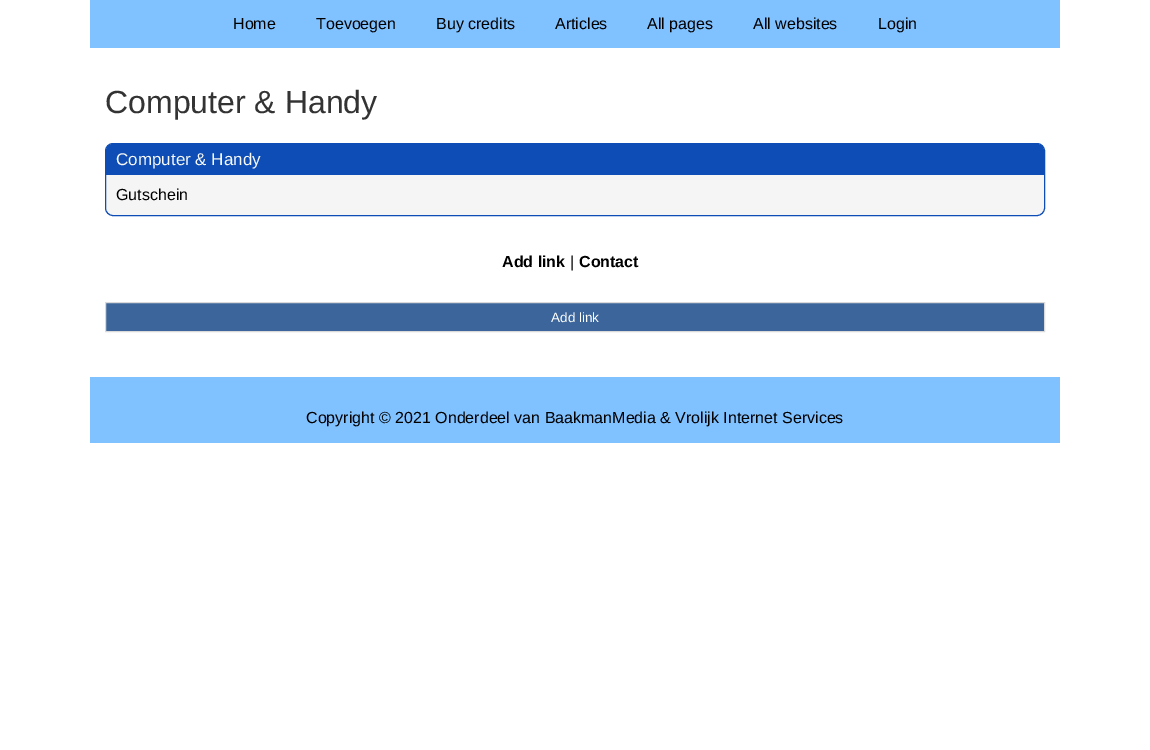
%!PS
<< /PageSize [1150 750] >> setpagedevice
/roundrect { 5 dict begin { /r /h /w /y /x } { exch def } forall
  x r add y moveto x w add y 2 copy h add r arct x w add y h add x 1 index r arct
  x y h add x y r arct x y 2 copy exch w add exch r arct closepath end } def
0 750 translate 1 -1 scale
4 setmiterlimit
1 setgray
0 0 1150 750 rectfill
0.502 0.757 1 setrgbcolor
90 0 970 48 rectfill
/LiberationSans-Regular [16 0 0 -16 0 0] selectfont
0 setgray
233 29 moveto (Home) show
316 29 moveto (Toevoegen) show
436 29 moveto (Buy credits) show
555 29 moveto (Articles) show
647 29 moveto (All pages) show
753 29 moveto (All websites) show
878 29 moveto (Login) show
/LiberationSans-Regular [32 0 0 -32 0 0] selectfont
0.2 setgray
105 113 moveto (Computer & Handy) show
0.961 setgray
105.5 143.5 939 72 7.5 roundrect gsave fill grestore
0.051 0.302 0.71 setrgbcolor
stroke
newpath 113 144 moveto 1037 144 lineto 1041 144 1044 147 1044 151 curveto 1044 175 lineto 106 175 lineto 106 151 lineto 106 147 109 144 113 144 curveto closepath fill
/LiberationSans-Regular [17 0 0 -17 0 0] selectfont
0.973 0.973 0.969 setrgbcolor
116 165 moveto (Computer & Handy) show
/LiberationSans-Regular [16 0 0 -16 0 0] selectfont
0 setgray
116 200 moveto (Gutschein) show
/LiberationSans-Bold [16 0 0 -16 0 0] selectfont
502 267 moveto (Add link) show
/LiberationSans-Regular [16 0 0 -16 0 0] selectfont
570 267 moveto (|) show
/LiberationSans-Bold [16 0 0 -16 0 0] selectfont
579 267 moveto (Contact) show
0.231 0.396 0.608 setrgbcolor
newpath 105.5 302.5 moveto 1044.5 302.5 lineto 1044.5 331.5 lineto 105.5 331.5 lineto closepath gsave fill grestore
0.855 setgray
stroke
/LiberationSans-Regular [13.5 0 0 -13.5 0 0] selectfont
1 setgray
551 322 moveto (Add link) show
0.502 0.757 1 setrgbcolor
90 377 970 66 rectfill
/LiberationSans-Regular [16 0 0 -16 0 0] selectfont
0 setgray
306 423 moveto (Copyright © 2021 Onderdeel van BaakmanMedia & Vrolijk Internet Services) show
showpage
